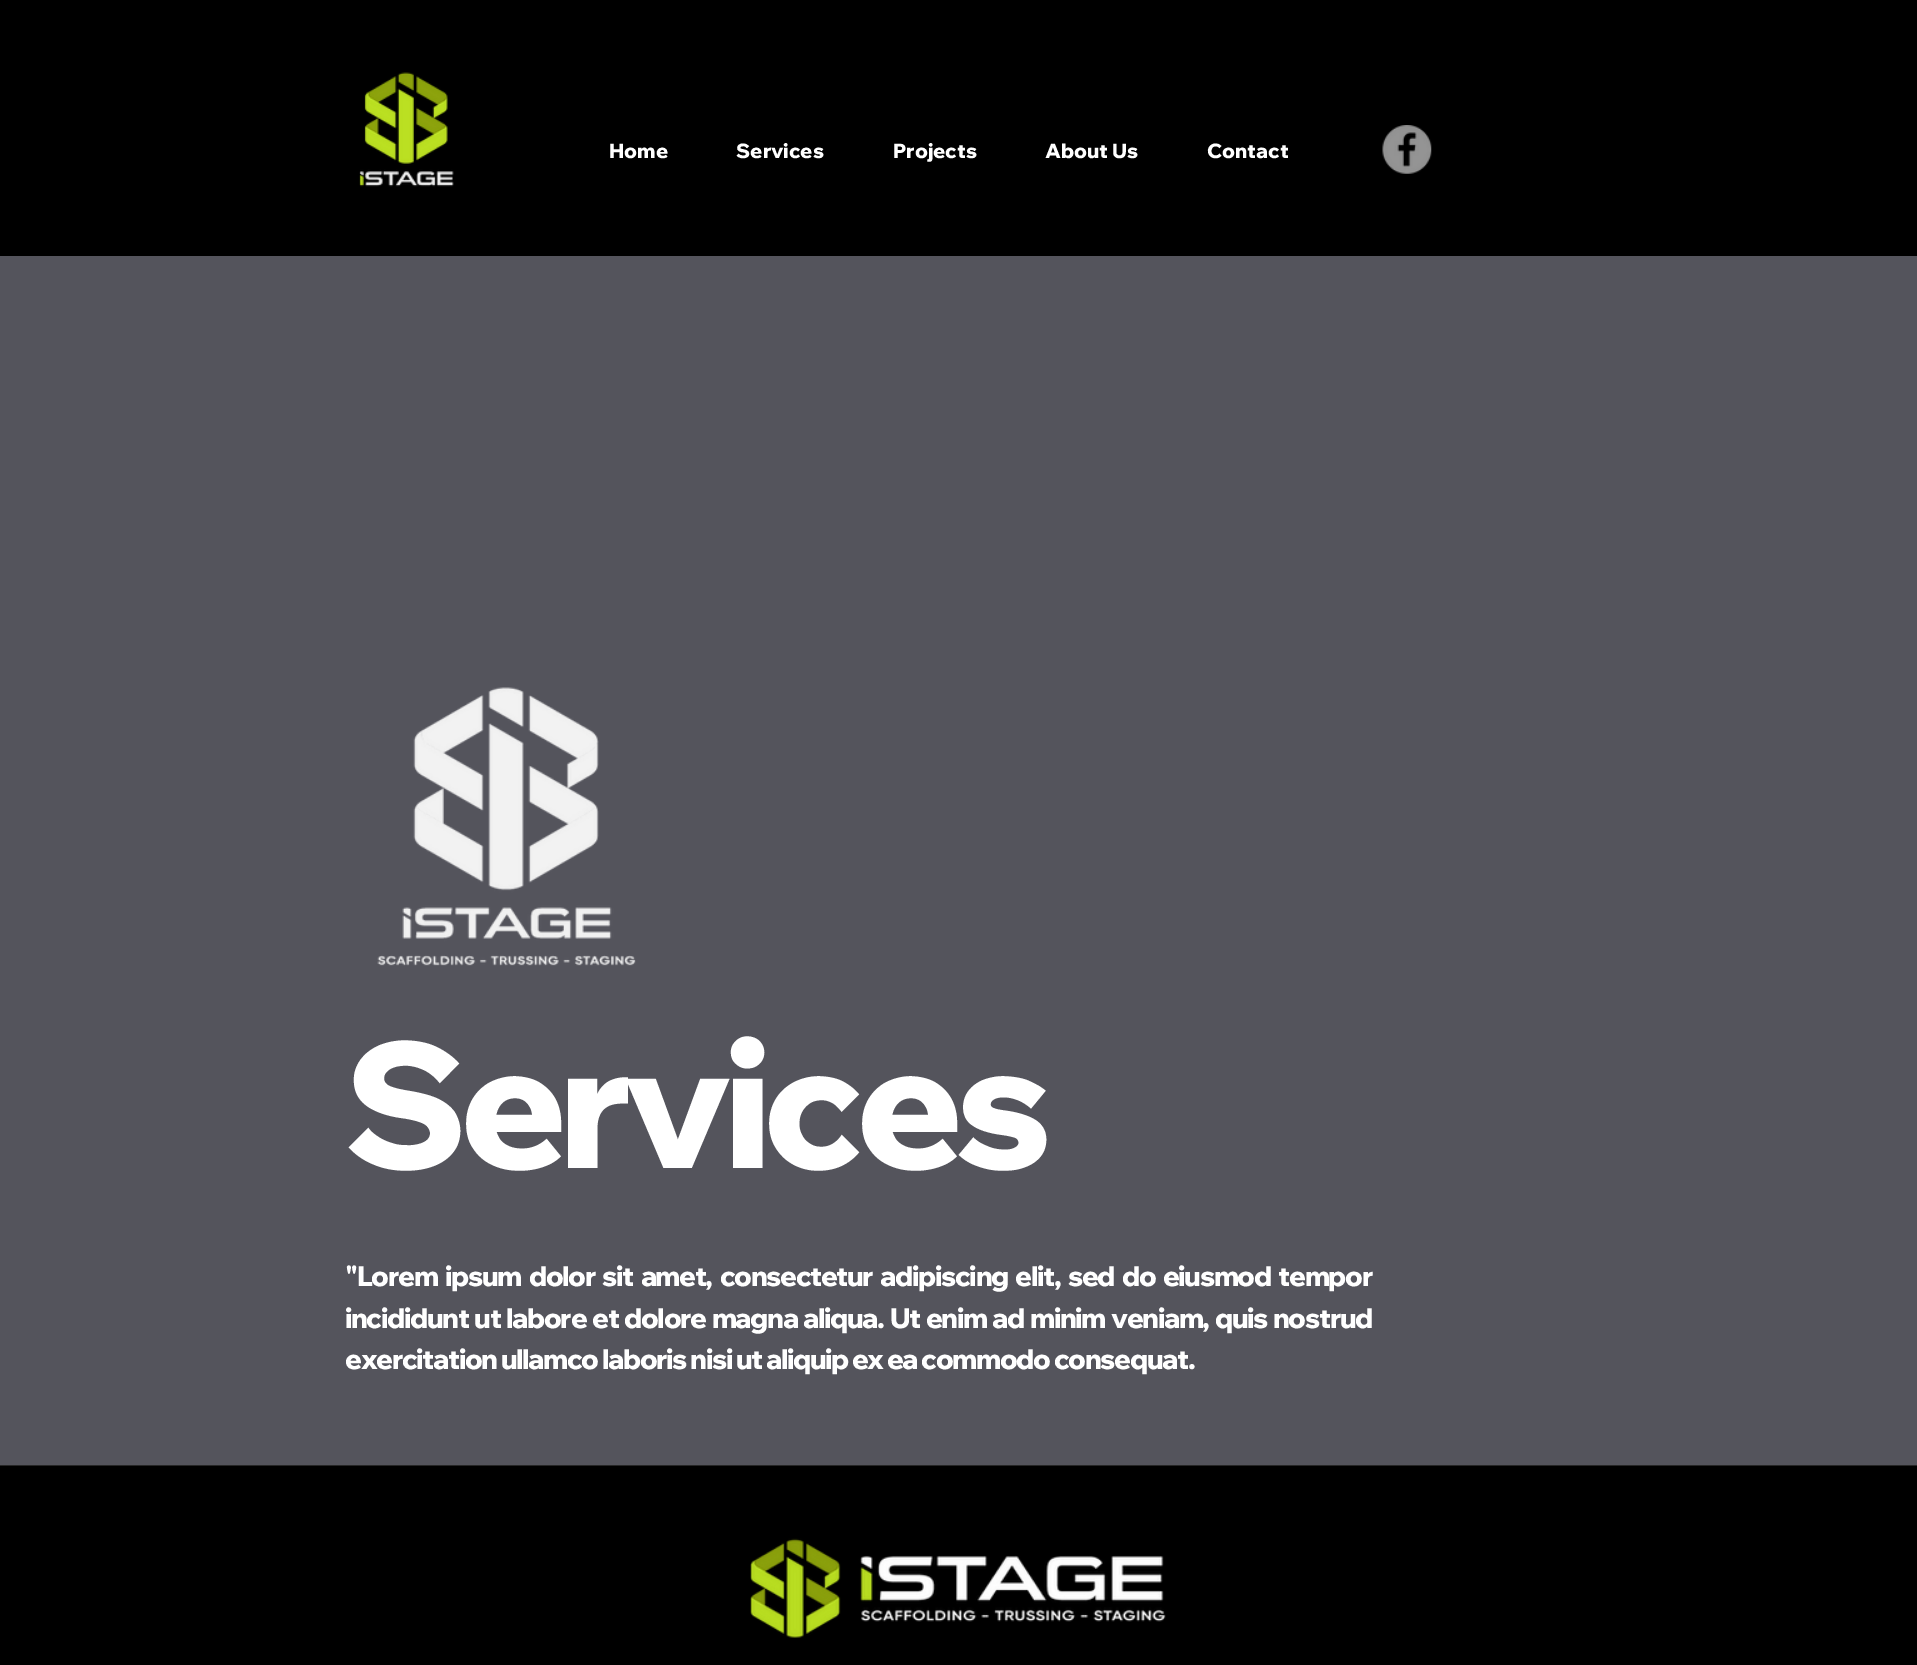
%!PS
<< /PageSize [1917 1665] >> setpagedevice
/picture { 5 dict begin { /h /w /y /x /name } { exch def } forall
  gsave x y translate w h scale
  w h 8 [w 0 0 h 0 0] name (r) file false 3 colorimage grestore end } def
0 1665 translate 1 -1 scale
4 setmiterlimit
0.329 0.329 0.361 setrgbcolor
0 0 1917 1665 rectfill
0 setgray
0 0 1917 256 rectfill
(img1.rgb) 359 72 95 115 picture
/WixMadeforDisplay-ExtraBold [20 0 0 -20 0 0] selectfont
1 setgray
609 158 moveto (Home) show
736 158 moveto (Services) show
893 158 moveto (Projects) show
1045 158 moveto (About Us) show
1207 158 moveto (Contact) show
(img2.rgb) 1382 125 50 49 picture
(img3.rgb) 377 687 259 279 picture
/WixMadeforDisplay-ExtraBold [175 0 0 -175 0 0] selectfont
344 1168 moveto -8.75 0 (Services) ashow
/WixMadeforDisplay-ExtraBold [27.5 0 0 -27.5 0 0] selectfont
345 1286 moveto 3.6 0 32 -1.38 0 ("Lorem ipsum dolor sit amet, consectetur adipiscing elit, sed do eiusmod tempor) awidthshow
345 1328 moveto 1.9 0 32 -1.38 0 (incididunt ut labore et dolore magna aliqua. Ut enim ad minim veniam, quis nostrud) awidthshow
345 1369 moveto -1.38 0 (exercitation ullamco laboris nisi ut aliquip ex ea commodo consequat.) ashow
0 setgray
0 1466 1917 199 rectfill
0.149 setgray
0 1465 1917 1 rectfill
(img4.rgb) 750 1538 416 100 picture
showpage
